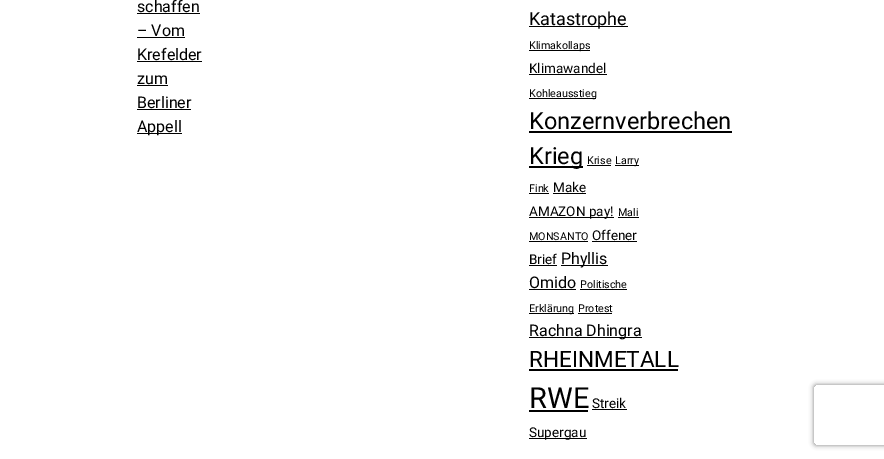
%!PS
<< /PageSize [884 459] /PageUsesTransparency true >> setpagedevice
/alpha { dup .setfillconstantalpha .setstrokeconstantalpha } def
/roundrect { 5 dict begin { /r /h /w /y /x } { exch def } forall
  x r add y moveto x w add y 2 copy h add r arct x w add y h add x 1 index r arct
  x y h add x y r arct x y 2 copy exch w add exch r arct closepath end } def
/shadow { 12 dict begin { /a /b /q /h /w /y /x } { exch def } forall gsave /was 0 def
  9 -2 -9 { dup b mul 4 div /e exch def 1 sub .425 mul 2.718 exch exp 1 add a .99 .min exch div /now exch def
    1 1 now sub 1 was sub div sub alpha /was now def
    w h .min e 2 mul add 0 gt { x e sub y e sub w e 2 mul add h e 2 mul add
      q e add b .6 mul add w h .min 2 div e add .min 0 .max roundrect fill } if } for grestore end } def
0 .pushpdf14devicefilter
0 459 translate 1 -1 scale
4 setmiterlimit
1 setgray
0 0 884 459 rectfill
/Roboto-Regular [16 0 0 -16 0 0] selectfont
0 setgray
137 12 moveto (schaffen) show
137 13 63 1 rectfill
137 36 moveto (– Vom) show
137 37 48 1 rectfill
137 60 moveto (Krefelder) show
137 61 65 1 rectfill
137 84 moveto (zum) show
137 85 31 1 rectfill
137 108 moveto (Berliner) show
137 109 54 1 rectfill
137 133 45 1 rectfill
137 132 moveto (Appell) show
529 26 99 1 rectfill
/Roboto-Regular [18 0 0 -18 0 0] selectfont
529 25 moveto (Katastrophe) show
529 50 61 1 rectfill
/Roboto-Regular [10.75 0 0 -10.75 0 0] selectfont
529 49 moveto (Klimakollaps) show
/Roboto-Regular [13.5 0 0 -13.5 0 0] selectfont
529 73 moveto (Klimawandel) show
529 74 78 1 rectfill
529 98 67 1 rectfill
/Roboto-Regular [10.75 0 0 -10.75 0 0] selectfont
529 97 moveto (Kohleausstieg) show
/Roboto-Regular [23.5 0 0 -23.5 0 0] selectfont
529 129 moveto (Konzernverbrechen) show
529 131 203 2 rectfill
529 166 54 2 rectfill
529 164 moveto (Krieg) show
/Roboto-Regular [10.75 0 0 -10.75 0 0] selectfont
587 164 moveto (Krise) show
587 165 24 1 rectfill
615 165 24 1 rectfill
615 164 moveto (Larry) show
529 192 moveto (Fink) show
529 193 20 1 rectfill
/Roboto-Regular [13.5 0 0 -13.5 0 0] selectfont
553 192 moveto (Make) show
553 193 33 1 rectfill
529 217 85 1 rectfill
529 216 moveto (AMAZON pay!) show
/Roboto-Regular [10.75 0 0 -10.75 0 0] selectfont
618 216 moveto (Mali) show
618 217 21 1 rectfill
529 240 moveto (MONSANTO) show
529 241 59 1 rectfill
/Roboto-Regular [13.5 0 0 -13.5 0 0] selectfont
592 240 moveto (Offener) show
592 241 45 1 rectfill
529 264 moveto (Brief) show
529 265 28 1 rectfill
561 265 47 1 rectfill
/Roboto-Regular [16 0 0 -16 0 0] selectfont
561 264 moveto (Phyllis) show
529 288 moveto (Omido) show
529 289 47 1 rectfill
/Roboto-Regular [10.75 0 0 -10.75 0 0] selectfont
580 288 moveto (Politische) show
580 289 47 1 rectfill
529 313 45 1 rectfill
529 312 moveto (Erklärung) show
578 312 moveto (Protest) show
578 313 34 1 rectfill
529 337 113 1 rectfill
/Roboto-Regular [16 0 0 -16 0 0] selectfont
529 336 moveto (Rachna Dhingra) show
/Roboto-Regular [22.5 0 0 -22.5 0 0] selectfont
529 367 moveto (RHEINMETALL) show
529 369 149 2 rectfill
/Roboto-Regular [29 0 0 -29 0 0] selectfont
529 408 moveto (RWE) show
529 410 59 2 rectfill
/Roboto-Regular [13.5 0 0 -13.5 0 0] selectfont
592 408 moveto (Streik) show
592 409 35 1 rectfill
529 438 58 1 rectfill
529 437 moveto (Supergau) show
gsave
newpath 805 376 moveto 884 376 lineto 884 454 lineto 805 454 lineto closepath 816 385 moveto 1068 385 lineto 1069 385 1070 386 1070 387 curveto 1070 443 lineto 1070 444 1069 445 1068 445 curveto 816 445 lineto 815 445 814 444 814 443 curveto 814 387 lineto 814 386 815 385 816 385 curveto closepath eoclip newpath
0.502 setgray
814 385 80 60 2 2.5 1 shadow
grestore
.poppdf14devicefilter showpage
